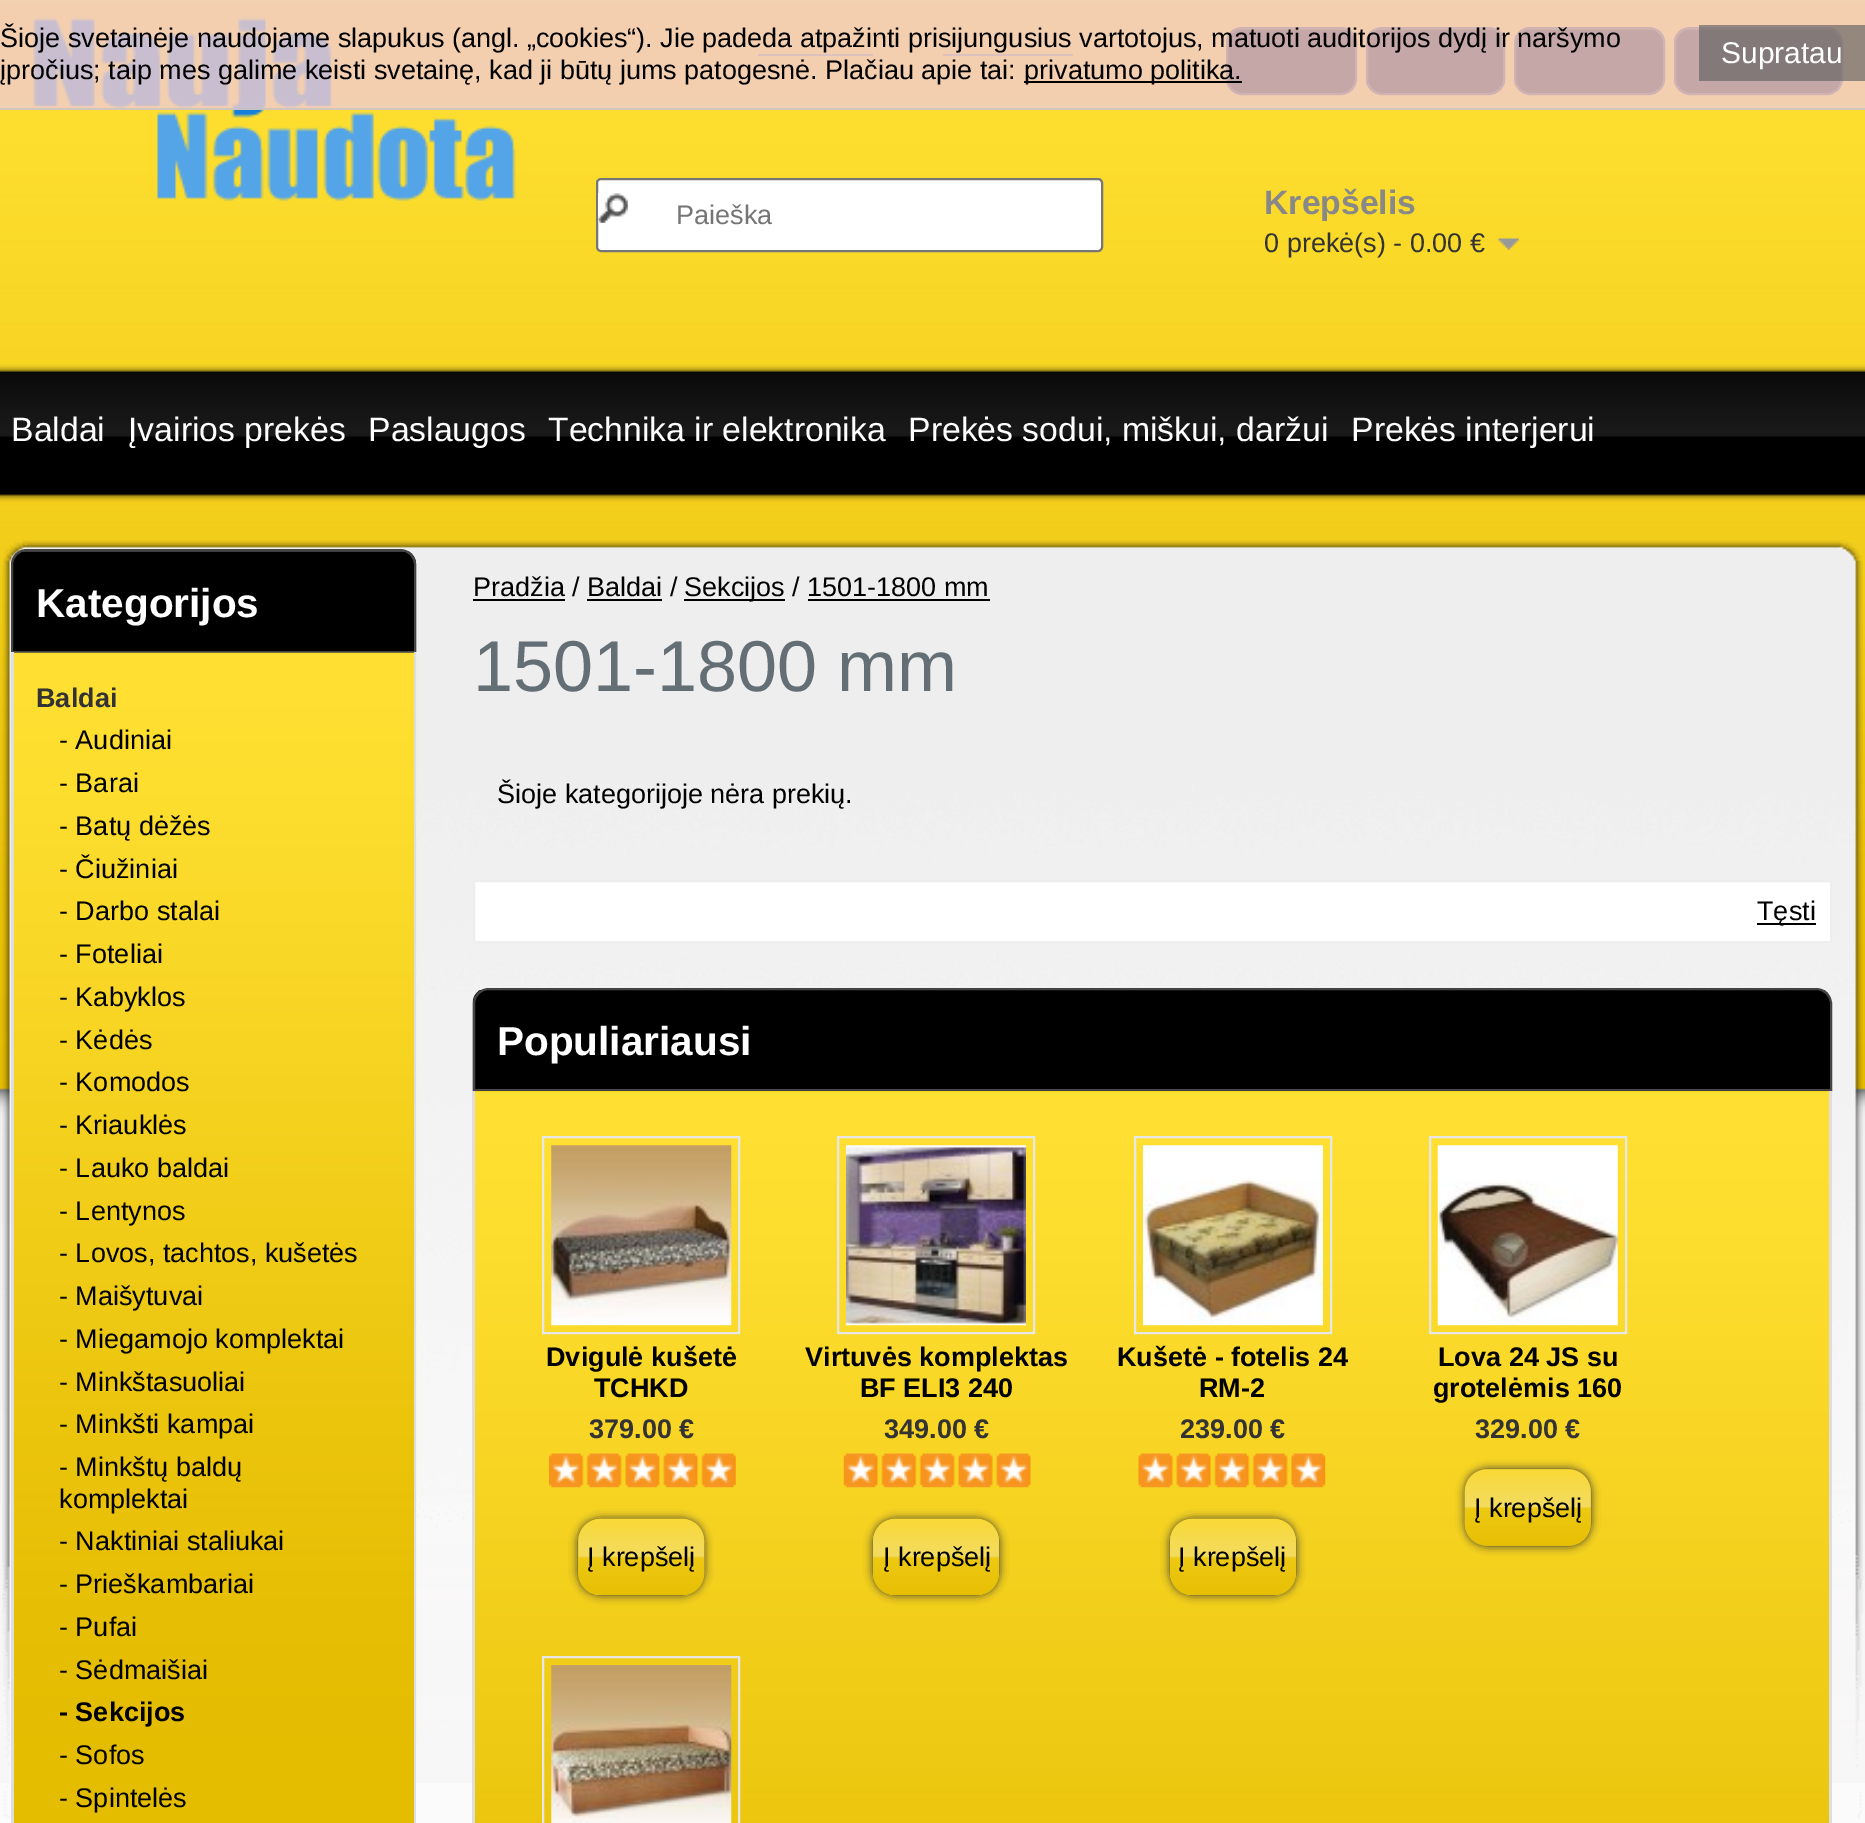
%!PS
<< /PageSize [1865 1823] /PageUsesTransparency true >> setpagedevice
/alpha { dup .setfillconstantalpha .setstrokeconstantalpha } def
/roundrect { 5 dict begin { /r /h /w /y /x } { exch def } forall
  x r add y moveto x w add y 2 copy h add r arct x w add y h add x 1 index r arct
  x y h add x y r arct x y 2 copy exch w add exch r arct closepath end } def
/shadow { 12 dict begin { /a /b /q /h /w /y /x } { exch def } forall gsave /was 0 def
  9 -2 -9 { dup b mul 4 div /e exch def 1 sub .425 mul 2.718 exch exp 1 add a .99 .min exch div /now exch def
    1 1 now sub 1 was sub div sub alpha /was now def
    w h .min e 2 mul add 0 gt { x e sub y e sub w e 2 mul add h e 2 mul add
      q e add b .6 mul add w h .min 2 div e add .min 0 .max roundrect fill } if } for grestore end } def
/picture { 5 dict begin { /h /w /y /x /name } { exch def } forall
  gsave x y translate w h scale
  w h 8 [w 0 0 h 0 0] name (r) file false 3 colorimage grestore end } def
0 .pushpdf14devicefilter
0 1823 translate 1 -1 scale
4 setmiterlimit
0.988 0.984 0.984 setrgbcolor
0 0 1865 1823 rectfill
(img1.rgb) 0 0 1865 1783 picture
(img2.rgb) 33 17 483 184 picture
0.533 setgray
758 54 115 2 rectfill
943 54 130 2 rectfill
(img3.rgb) 1226 29 131 66 picture
0.267 setgray
2 setlinewidth
1227 28 129 66 15 roundrect stroke
(img4.rgb) 1365 29 141 66 picture
1367 28 137 66 15 roundrect stroke
(img5.rgb) 1514 29 151 66 picture
1515 28 149 66 15 roundrect stroke
(img6.rgb) 1674 29 169 66 picture
1675 28 167 66 15 roundrect stroke
0.82 alpha
0.941 0.8 0.8 setrgbcolor
0 0 1865 110 rectfill
0.73 alpha
0.765 setgray
0 108 1865 2 rectfill
/LiberationSans-Regular [27 0 0 -27 0 0] selectfont
1 alpha
0 setgray
0 47 moveto (Šioje svetainėje naudojame slapukus \(angl. „cookies“\). Jie padeda atpažinti prisijungusius vartotojus, matuoti auditorijos dydį ir naršymo) show
0 79 moveto (įpročius; taip mes galime keisti svetainę, kad ji būtų jums patogesnė. Plačiau apie tai:) show
1024 81 218 2 rectfill
1024 79 moveto (privatumo politika.) show
0.65 alpha
0.38 setgray
1699 25 166 56 rectfill
/LiberationSans-Regular [30 0 0 -30 0 0] selectfont
1 alpha
1 setgray
1721 63 moveto (Supratau) show
597 179 505 72 4 roundrect gsave fill grestore
0.463 setgray
stroke
(img7.rgb) 598 193 30 30 picture
/LiberationSans-Regular [27 0 0 -27 0 0] selectfont
0.459 setgray
676 224 moveto (Paieška) show
/LiberationSans-Bold [33.75 0 0 -33.75 0 0] selectfont
0.533 setgray
1264 214 moveto (Krepšelis) show
/LiberationSans-Regular [27 0 0 -27 0 0] selectfont
0.2 setgray
1264 252 moveto (0 prekė\(s\) - 0.00 €) show
(img8.rgb) 1498 238 21 12 picture
(img9.rgb) 0 364 1865 138 picture
/LiberationSans-Regular [33.75 0 0 -33.75 0 0] selectfont
1 setgray
11 441 moveto (Baldai) show
128 441 moveto (Įvairios prekės) show
368 441 moveto (Paslaugos) show
548 441 moveto (Technika ir elektronika) show
908 441 moveto (Prekės sodui, miškui, daržui) show
1351 441 moveto (Prekės interjerui) show
(img10.rgb) 2 540 1861 1278 picture
(img11.rgb) 11 551 406 101 picture
0.267 setgray
newpath 27 550 moveto 400 550 lineto 408.5 550 415 556.5 415 565 curveto 415 652 lineto 12 652 lineto 12 565 lineto 12 556.5 18.5 550 27 550 curveto closepath stroke
/LiberationSans-Bold [40.5 0 0 -40.5 0 0] selectfont
1 setgray
36 617 moveto (Kategorijos) show
0.894 0.741 0 setrgbcolor
14 1741 400 82 rectfill
(img12.rgb) 14 652 403 1090 picture
0.871 setgray
newpath 11 652 moveto 416 652 lineto 416 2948 lineto 416 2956 409 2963 400 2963 curveto 27 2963 lineto 18 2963 11 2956 11 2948 curveto closepath 14 652 moveto 414 652 lineto 414 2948 lineto 414 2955 408 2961 400 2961 curveto 27 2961 lineto 20 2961 14 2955 14 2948 curveto closepath eofill
/LiberationSans-Bold [27 0 0 -27 0 0] selectfont
0.2 setgray
36 707 moveto (Baldai) show
/LiberationSans-Regular [27 0 0 -27 0 0] selectfont
0 setgray
59 749 moveto (- Audiniai) show
59 792 moveto (- Barai) show
59 835 moveto (- Batų dėžės) show
59 878 moveto (- Čiužiniai) show
59 920 moveto (- Darbo stalai) show
59 963 moveto (- Foteliai) show
59 1006 moveto (- Kabyklos) show
59 1049 moveto (- Kėdės) show
59 1091 moveto (- Komodos) show
59 1134 moveto (- Kriauklės) show
59 1177 moveto (- Lauko baldai) show
59 1220 moveto (- Lentynos) show
59 1262 moveto (- Lovos, tachtos, kušetės) show
59 1305 moveto (- Maišytuvai) show
59 1348 moveto (- Miegamojo komplektai) show
59 1391 moveto (- Minkštasuoliai) show
59 1433 moveto (- Minkšti kampai) show
59 1476 moveto (- Minkštų baldų) show
59 1508 moveto (komplektai) show
59 1550 moveto (- Naktiniai staliukai) show
59 1593 moveto (- Prieškambariai) show
59 1636 moveto (- Pufai) show
59 1679 moveto (- Sėdmaišiai) show
/LiberationSans-Bold [27 0 0 -27 0 0] selectfont
59 1721 moveto (- Sekcijos) show
/LiberationSans-Regular [27 0 0 -27 0 0] selectfont
59 1764 moveto (- Sofos) show
59 1807 moveto (- Spintelės) show
473 596 moveto (Pradžia / Baldai /) show
473 599 92 2 rectfill
684 599 101 2 rectfill
684 596 moveto (Sekcijos / 1501-1800 mm) show
587 599 75 2 rectfill
808 599 182 2 rectfill
/LiberationSans-Regular [72 0 0 -72 0 0] selectfont
0.388 0.431 0.459 setrgbcolor
473 691 moveto (1501-1800 mm) show
/LiberationSans-Regular [27 0 0 -27 0 0] selectfont
0 setgray
497 803 moveto (Šioje kategorijoje nėra prekių.) show
1 setgray
newpath 474 881 moveto 1831 881 lineto 1831 942 lineto 474 942 lineto closepath gsave fill grestore
0.933 setgray
stroke
0 setgray
1757 923 59 2 rectfill
1757 920 moveto (Tęsti) show
(img13.rgb) 472 990 1360 101 picture
0.267 setgray
newpath 489 989 moveto 1816 989 lineto 1824.5 989 1831 995.5 1831 1004 curveto 1831 1090 lineto 474 1090 lineto 474 1004 lineto 474 995.5 480.5 989 489 989 curveto closepath stroke
/LiberationSans-Bold [40.5 0 0 -40.5 0 0] selectfont
1 setgray
497 1055 moveto (Populiariausi) show
0.894 0.741 0 setrgbcolor
475 1091 1354 1 rectfill
(img14.rgb) 475 1091 1354 732 picture
0.871 setgray
newpath 472 1091 moveto 1832 1091 lineto 1832 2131 lineto 1832 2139 1824 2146 1816 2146 curveto 488 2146 lineto 480 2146 472 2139 472 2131 curveto closepath 475 1091 moveto 1829 1091 lineto 1829 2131 lineto 1829 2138 1823 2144 1816 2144 curveto 488 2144 lineto 481 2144 475 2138 475 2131 curveto closepath eofill
0.906 setgray
543 1137 196 196 rectstroke
(img15.rgb) 551 1145 181 181 picture
/LiberationSans-Bold [27 0 0 -27 0 0] selectfont
0 setgray
546 1366 moveto (Dvigulė kušetė) show
594 1397 moveto (TCHKD) show
0.2 setgray
589 1438 moveto (379.00 €) show
(img16.rgb) 549 1453 187 35 picture
578 1519 126 76 23 4.5 1 shadow
(img17.rgb) 578 1518 127 77 picture
/LiberationSans-Regular [27 0 0 -27 0 0] selectfont
0 setgray
587 1566 moveto (Į krepšelį) show
0.906 setgray
838 1137 196 196 rectstroke
(img18.rgb) 846 1145 180 181 picture
/LiberationSans-Bold [27 0 0 -27 0 0] selectfont
0 setgray
805 1366 moveto (Virtuvės komplektas) show
860 1397 moveto (BF ELI3 240) show
0.2 setgray
884 1438 moveto (349.00 €) show
(img19.rgb) 843 1453 188 35 picture
873 1519 126 76 23 4.5 1 shadow
(img20.rgb) 873 1518 126 77 picture
/LiberationSans-Regular [27 0 0 -27 0 0] selectfont
0 setgray
883 1566 moveto (Į krepšelį) show
0.906 setgray
1135 1137 196 196 rectstroke
(img21.rgb) 1143 1145 180 181 picture
/LiberationSans-Bold [27 0 0 -27 0 0] selectfont
0 setgray
1117 1366 moveto (Kušetė - fotelis 24) show
1199 1397 moveto (RM-2) show
0.2 setgray
1180 1438 moveto (239.00 €) show
(img22.rgb) 1138 1453 188 35 picture
1170 1519 126 76 23 4.5 1 shadow
(img20.rgb) 1170 1518 126 77 picture
/LiberationSans-Regular [27 0 0 -27 0 0] selectfont
0 setgray
1178 1566 moveto (Į krepšelį) show
0.906 setgray
1430 1137 196 196 rectstroke
(img23.rgb) 1437 1145 181 181 picture
/LiberationSans-Bold [27 0 0 -27 0 0] selectfont
0 setgray
1438 1366 moveto (Lova 24 JS su) show
1433 1397 moveto (grotelėmis 160) show
0.2 setgray
1475 1438 moveto (329.00 €) show
1465 1469 126 77 23 4.5 1 shadow
(img24.rgb) 1464 1469 127 77 picture
/LiberationSans-Regular [27 0 0 -27 0 0] selectfont
0 setgray
1474 1517 moveto (Į krepšelį) show
0.906 setgray
543 1657 196 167 rectstroke
(img25.rgb) 551 1665 181 158 picture
.poppdf14devicefilter showpage
